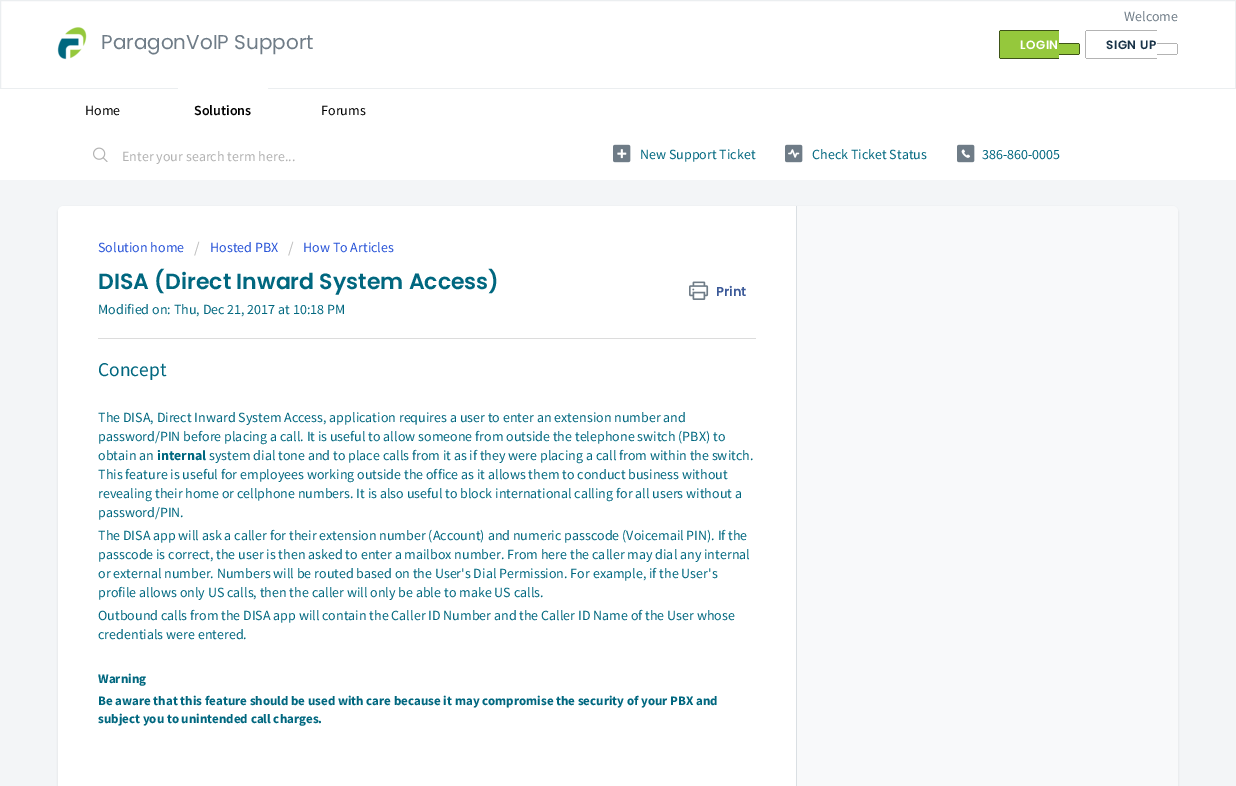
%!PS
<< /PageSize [1236 786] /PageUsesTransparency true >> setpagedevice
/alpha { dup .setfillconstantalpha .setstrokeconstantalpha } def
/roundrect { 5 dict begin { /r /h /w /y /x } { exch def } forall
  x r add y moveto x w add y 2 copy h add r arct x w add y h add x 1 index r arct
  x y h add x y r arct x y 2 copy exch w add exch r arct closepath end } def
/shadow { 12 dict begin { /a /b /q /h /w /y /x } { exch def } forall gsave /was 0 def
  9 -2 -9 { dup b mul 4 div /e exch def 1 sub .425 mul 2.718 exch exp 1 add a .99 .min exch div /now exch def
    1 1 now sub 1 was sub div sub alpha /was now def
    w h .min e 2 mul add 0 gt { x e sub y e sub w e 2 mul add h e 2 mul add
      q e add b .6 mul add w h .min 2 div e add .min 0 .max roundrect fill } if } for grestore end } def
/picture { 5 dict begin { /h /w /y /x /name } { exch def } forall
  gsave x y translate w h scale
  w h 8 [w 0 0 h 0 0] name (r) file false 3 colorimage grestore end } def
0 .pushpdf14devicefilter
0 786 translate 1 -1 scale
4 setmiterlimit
0.953 0.961 0.969 setrgbcolor
0 0 1236 786 rectfill
1 setgray
newpath 0.5 0.5 moveto 1235.5 0.5 lineto 1235.5 88.5 lineto 0.5 88.5 lineto closepath gsave fill grestore
0.922 0.933 0.941 setrgbcolor
stroke
(img1.rgb) 57 27 30 33 picture
/Poppins-Regular [20 0 0 -20 0 0] selectfont
0.435 0.486 0.529 setrgbcolor
101 49 moveto (ParagonVoIP Support) show
/SourceSansPro-Regular [14 0 0 -14 0 0] selectfont
1124 21 moveto (Welcome) show
0.584 0.784 0.235 setrgbcolor
newpath 1001 30 moveto 1059 30 lineto 1059 59 lineto 1001 59 lineto 1000 59 999 58 999 57 curveto 999 32 lineto 999 31 1000 30 1001 30 curveto closepath fill
/Poppins-SemiBold [12 0 0 -12 0 0] selectfont
1 setgray
1020 49 moveto 0.5 0 (LOGIN) ashow
0.243 0.325 0.094 setrgbcolor
1000 30 59 1 rectfill
1000 58 59 1 rectfill
999 31 1 27 rectfill
0.584 0.784 0.235 setrgbcolor
newpath 1059 43 moveto 1078 43 lineto 1079 43 1080 44 1080 45 curveto 1080 53 lineto 1080 54 1079 55 1078 55 curveto 1059 55 lineto closepath fill
0.243 0.325 0.094 setrgbcolor
1059 43 20 1 rectfill
1079 44 1 10 rectfill
1059 54 20 1 rectfill
0.094 0.196 0.278 setrgbcolor
1106 49 moveto 0.5 0 (SIGN UP) ashow
0.702 setgray
1086 30 71 1 rectfill
1086 58 71 1 rectfill
1085 31 1 27 rectfill
1157 43 20 1 rectfill
1177 44 1 10 rectfill
1157 54 20 1 rectfill
1 setgray
0 89 1236 91 rectfill
/SourceSansPro-Regular [14 0 0 -14 0 0] selectfont
0 setgray
85 115 moveto (Home) show
1 setgray
178 88 90 1 rectfill
/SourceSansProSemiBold-SemiBold [14 0 0 -14 0 0] selectfont
0 setgray
194 115 moveto (Solutions) show
/SourceSansPro-Regular [14 0 0 -14 0 0] selectfont
321 115 moveto (Forums) show
(img2.rgb) 93 147 15 15 picture
0.698 setgray
122 161 moveto (Enter your search term here...) show
(img3.rgb) 613 144 18 19 picture
0 0.404 0.498 setrgbcolor
640 159 moveto (New Support Ticket) show
(img4.rgb) 785 144 18 19 picture
812 159 moveto (Check Ticket Status) show
(img5.rgb) 957 144 18 19 picture
982 159 moveto (386-860-0005) show
0.247 0.247 0.267 setrgbcolor
58 207 1120 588 6 1 0.15 shadow
0.973 0.976 0.98 setrgbcolor
58 206 1120 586 6 roundrect fill
newpath 797 206 moveto 1172 206 lineto 1175.5 206 1178 208.5 1178 212 curveto 1178 220 lineto 1178 223.5 1175.5 226 1172 226 curveto 797 226 lineto closepath fill
1 setgray
newpath 64 206 moveto 797 206 lineto 797 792 lineto 64 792 lineto 60.5 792 58 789.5 58 786 curveto 58 212 lineto 58 208.5 60.5 206 64 206 curveto closepath fill
0.855 0.875 0.89 setrgbcolor
796 206 1 580 rectfill
0.153 0.325 0.843 setrgbcolor
98 252 moveto (Solution home) show
/SourceSansPro-Regular [16 0 0 -16 0 0] selectfont
0.733 setgray
194 253 moveto (/) show
/SourceSansPro-Regular [14 0 0 -14 0 0] selectfont
0.153 0.325 0.843 setrgbcolor
210 252 moveto (Hosted PBX) show
/SourceSansPro-Regular [16 0 0 -16 0 0] selectfont
0.733 setgray
288 253 moveto (/) show
/SourceSansPro-Regular [14 0 0 -14 0 0] selectfont
0.153 0.325 0.843 setrgbcolor
303 252 moveto (How To Articles) show
/Poppins-SemiBold [22 0 0 -22 0 0] selectfont
0 0.404 0.498 setrgbcolor
98 289 moveto (DISA \(Direct Inward System Access\)) show
(img6.rgb) 689 281 20 19 picture
/Poppins-SemiBold [13 0 0 -13 0 0] selectfont
0.231 0.349 0.596 setrgbcolor
716 296 moveto (Print) show
/SourceSansPro-Regular [14 0 0 -14 0 0] selectfont
0 0.404 0.498 setrgbcolor
98 314 moveto (Modified on: Thu, Dec 21, 2017 at 10:18 PM) show
0.863 setgray
98 338 658 1 rectfill
/SourceSansPro-Regular [19.5 0 0 -19.5 0 0] selectfont
0 0.404 0.498 setrgbcolor
98 376 moveto (Concept) show
/SourceSansPro-Regular [14 0 0 -14 0 0] selectfont
98 422 moveto (The DISA, Direct Inward System Access, application requires a user to enter an extension number and) show
98 441 moveto (password/PIN before placing a call. It is useful to allow someone from outside the telephone switch \(PBX\) to) show
98 460 moveto (obtain an) show
/SourceSansPro-Bold [14 0 0 -14 0 0] selectfont
157 460 moveto (internal) show
/SourceSansPro-Regular [14 0 0 -14 0 0] selectfont
209 460 moveto (system dial tone and to place calls from it as if they were placing a call from within the switch.) show
98 479 moveto (This feature is useful for employees working outside the office as it allows them to conduct business without) show
98 498 moveto (revealing their home or cellphone numbers. It is also useful to block international calling for all users without a) show
98 517 moveto (password/PIN.) show
98 540 moveto (The DISA app will ask a caller for their extension number \(Account\) and numeric passcode \(Voicemail PIN\). If the) show
98 559 moveto (passcode is correct, the user is then asked to enter a mailbox number. From here the caller may dial any internal) show
98 578 moveto (or external number. Numbers will be routed based on the User's Dial Permission. For example, if the User's) show
98 597 moveto (profile allows only US calls, then the caller will only be able to make US calls.) show
98 620 moveto (Outbound calls from the DISA app will contain the Caller ID Number and the Caller ID Name of the User whose) show
98 639 moveto (credentials were entered.) show
/SourceSansPro-Bold [13 0 0 -13 0 0] selectfont
98 683 moveto (Warning) show
98 705 moveto (Be aware that this feature should be used with care because it may compromise the security of your PBX and) show
98 723 moveto (subject you to unintended call charges.) show
.poppdf14devicefilter showpage
